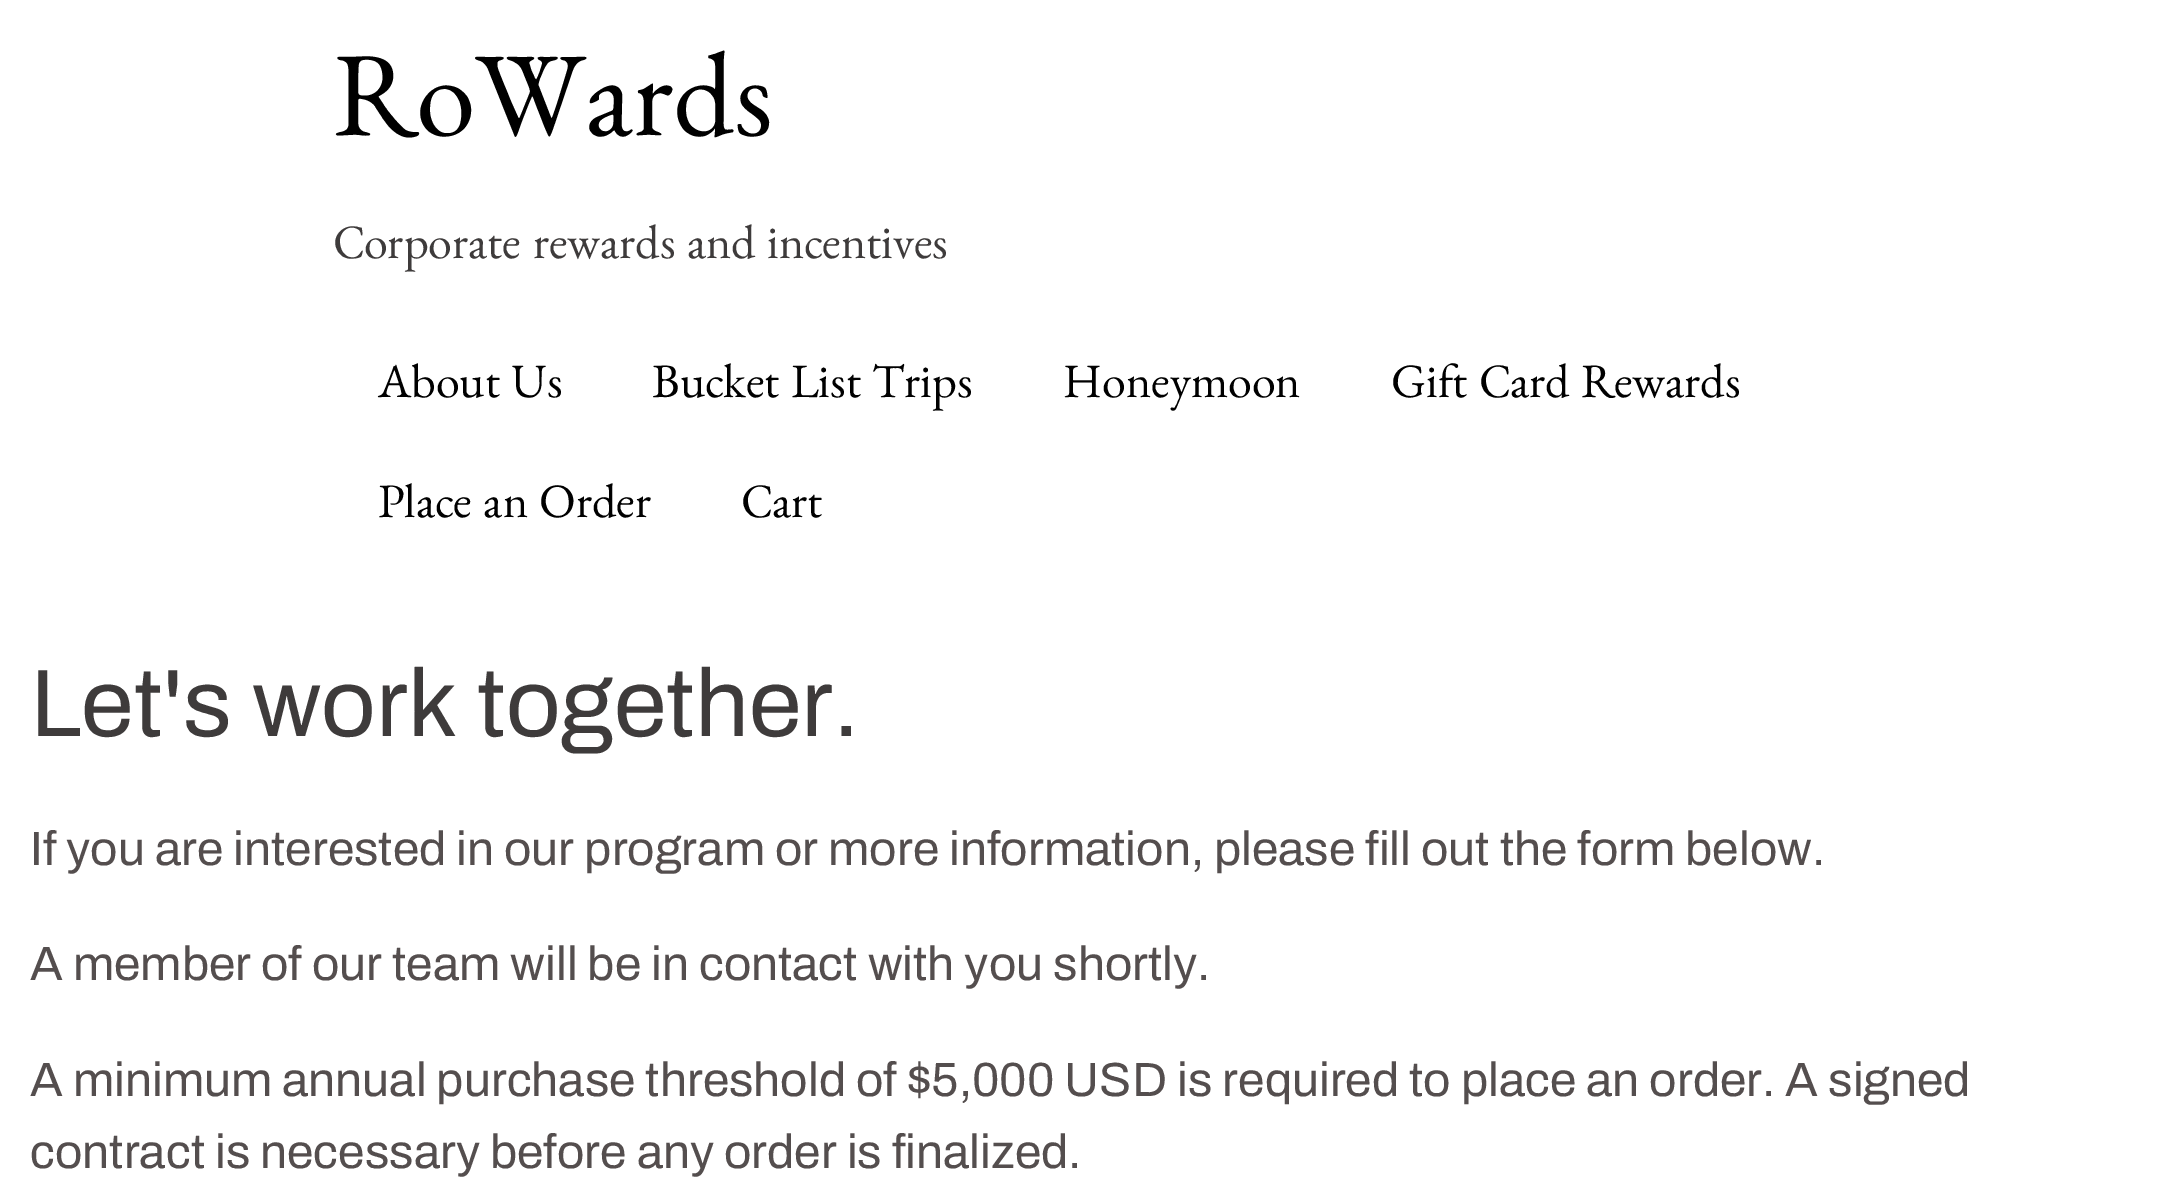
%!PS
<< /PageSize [2165 1186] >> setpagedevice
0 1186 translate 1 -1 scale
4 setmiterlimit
1 setgray
0 0 2165 1186 rectfill
/Benne-Regular [120 0 0 -120 0 0] selectfont
0 setgray
333 135 moveto (RoWards) show
/Benne-Regular [48 0 0 -48 0 0] selectfont
0.243 0.231 0.231 setrgbcolor
333 258 moveto (Corporate rewards and incentives) show
0 setgray
378 397 moveto (About Us) show
652 397 moveto (Bucket List Trips) show
1063 397 moveto (Honeymoon) show
1391 397 moveto (Gift Card Rewards) show
378 517 moveto (Place an Order) show
741 517 moveto (Cart) show
/Archivo-Regular [96 0 0 -96 0 0] selectfont
0.243 0.231 0.231 setrgbcolor
30 736 moveto (Let's work together.) show
/Archivo-Regular [48 0 0 -48 0 0] selectfont
0.329 0.306 0.306 setrgbcolor
30 865 moveto (If you are interested in our program or more information, please fill out the form below.) show
30 980 moveto (A member of our team will be in contact with you shortly.) show
30 1096 moveto (A minimum annual purchase threshold of $5,000 USD is required to place an order. A signed) show
30 1168 moveto (contract is necessary before any order is finalized.) show
showpage
